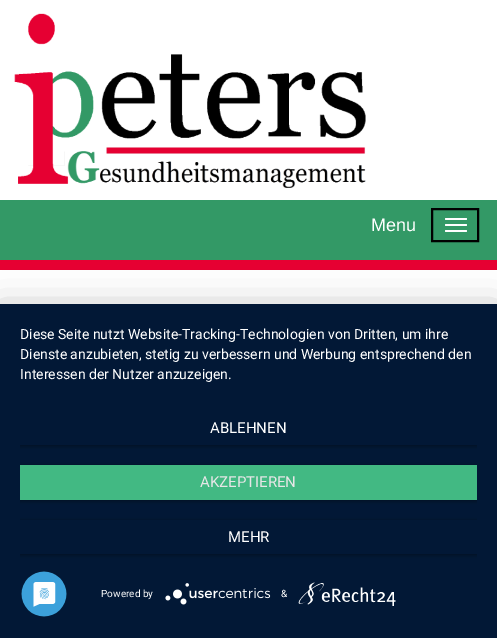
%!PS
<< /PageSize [497 638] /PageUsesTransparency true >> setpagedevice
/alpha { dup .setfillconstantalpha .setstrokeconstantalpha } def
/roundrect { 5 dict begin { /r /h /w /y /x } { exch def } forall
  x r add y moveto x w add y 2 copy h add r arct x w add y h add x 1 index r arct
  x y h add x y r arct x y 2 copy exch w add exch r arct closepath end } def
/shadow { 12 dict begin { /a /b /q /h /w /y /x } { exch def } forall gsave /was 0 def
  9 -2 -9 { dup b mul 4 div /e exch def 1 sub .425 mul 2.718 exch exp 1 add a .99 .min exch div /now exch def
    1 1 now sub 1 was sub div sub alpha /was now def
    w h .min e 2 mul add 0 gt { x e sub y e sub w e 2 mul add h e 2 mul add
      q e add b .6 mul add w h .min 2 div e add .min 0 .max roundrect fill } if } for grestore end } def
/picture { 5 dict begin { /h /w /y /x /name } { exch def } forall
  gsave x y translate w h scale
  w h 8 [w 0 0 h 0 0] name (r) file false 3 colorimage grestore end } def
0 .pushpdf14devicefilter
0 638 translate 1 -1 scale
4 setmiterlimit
1 setgray
0 0 497 638 rectfill
(img1.rgb) 14 13 352 175 picture
0.2 0.6 0.4 setrgbcolor
0 200 497 60 rectfill
0.902 0 0.196 setrgbcolor
0 260 497 10 rectfill
/LiberationSans-Regular [18 0 0 -18 0 0] selectfont
1 setgray
371 231 moveto (Menu) show
0 setgray
2 setlinewidth
432 209 46 32 rectstroke
1 setgray
445 218 22 2 1 roundrect fill
445 224 22 2 1 roundrect fill
445 230 22 2 1 roundrect fill
0 setgray
0 310 497 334 0 18 0.3 shadow
0.008 0.094 0.212 setrgbcolor
0 304 497 334 rectfill
/Roboto-Regular [14 0 0 -14 0 0] selectfont
1 setgray
20 339 moveto (Diese Seite nutzt Website-Tracking-Technologien von Dritten, um ihre) show
20 359 moveto (Dienste anzubieten, stetig zu verbessern und Werbung entsprechend den) show
20 379 moveto (Interessen der Nutzer anzuzeigen.) show
gsave
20 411 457 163 rectclip
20 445 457 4 rectclip
0 setgray
20 412 457 34 0 2 0.4 shadow
grestore
/Roboto-Regular [15 0 0 -15 0 0] selectfont
210 433 moveto (ABLEHNEN) show
gsave
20 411 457 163 rectclip
0 setgray
20 466 457 35 0 2 0.4 shadow
grestore
0.259 0.725 0.514 setrgbcolor
20 465 457 35 rectfill
0.902 setgray
200 487 moveto (AKZEPTIEREN) show
gsave
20 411 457 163 rectclip
newpath 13 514 moveto 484 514 lineto 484 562 lineto 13 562 lineto closepath 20 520 moveto 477 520 lineto 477 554 lineto 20 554 lineto closepath eoclip newpath
0 setgray
20 521 457 34 0 2 0.4 shadow
grestore
1 setgray
228 542 moveto (MEHR) show
/Roboto-Regular [10 0 0 -10 0 0] selectfont
101 597 moveto (Powered by) show
(img2.rgb) 165 583 106 22 picture
281 597 moveto (&) show
(img3.rgb) 298 582 98 24 picture
(img4.rgb) 21 571 46 46 picture
.poppdf14devicefilter showpage
